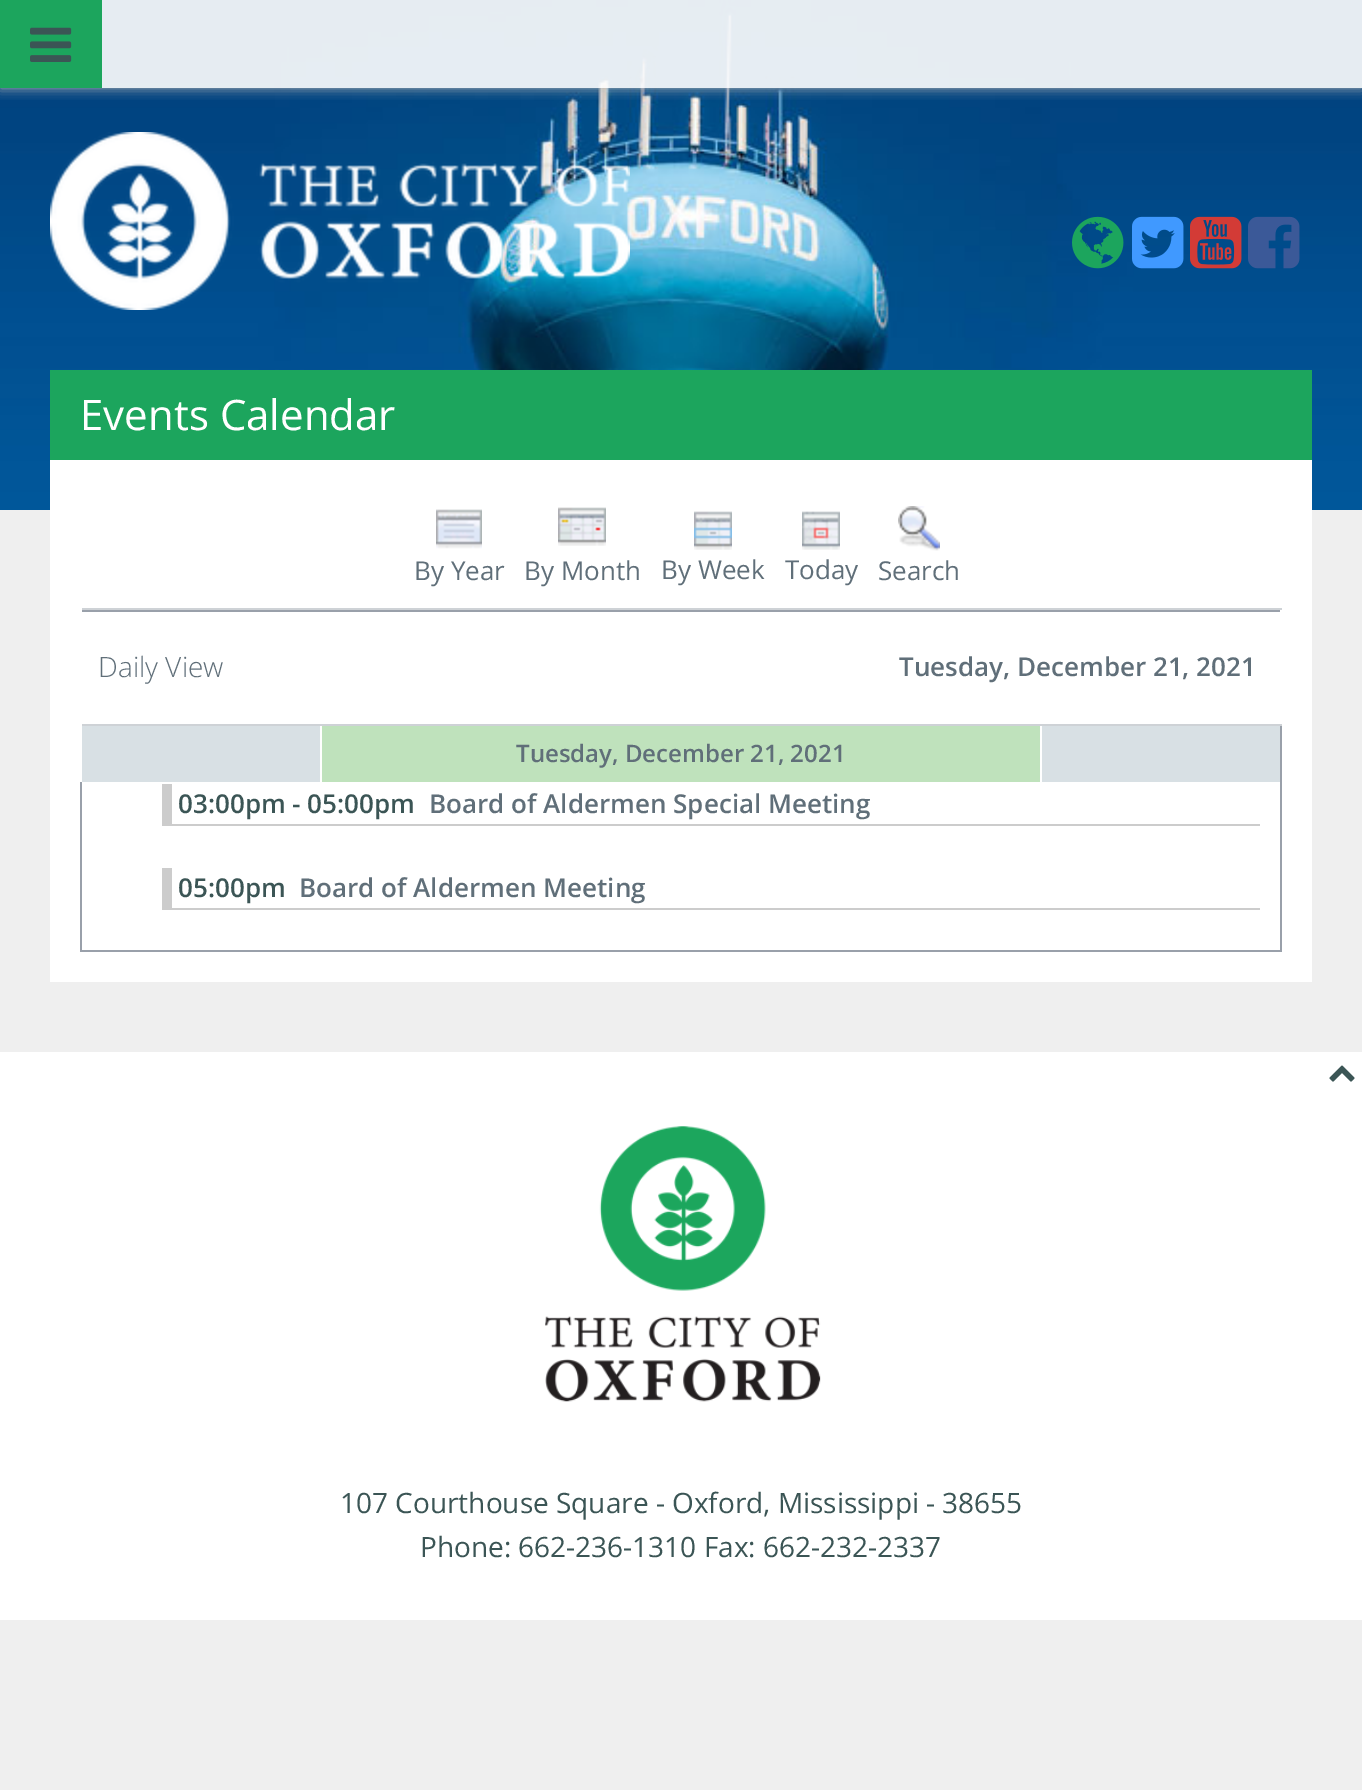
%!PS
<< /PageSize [1362 1790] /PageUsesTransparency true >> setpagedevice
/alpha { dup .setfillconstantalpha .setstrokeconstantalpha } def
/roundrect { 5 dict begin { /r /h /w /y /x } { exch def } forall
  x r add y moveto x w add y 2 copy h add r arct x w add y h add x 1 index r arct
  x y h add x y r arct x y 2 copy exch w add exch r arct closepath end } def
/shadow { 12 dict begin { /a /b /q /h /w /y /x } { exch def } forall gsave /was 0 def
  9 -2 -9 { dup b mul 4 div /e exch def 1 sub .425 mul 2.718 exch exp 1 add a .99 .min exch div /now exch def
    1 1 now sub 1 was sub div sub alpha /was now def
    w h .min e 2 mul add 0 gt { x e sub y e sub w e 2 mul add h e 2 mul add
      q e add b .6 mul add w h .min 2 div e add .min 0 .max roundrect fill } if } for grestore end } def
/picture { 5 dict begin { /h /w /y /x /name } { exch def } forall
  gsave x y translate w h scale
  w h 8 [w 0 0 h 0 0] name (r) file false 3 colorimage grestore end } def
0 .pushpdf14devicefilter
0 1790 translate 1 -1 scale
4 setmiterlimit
0.937 setgray
0 0 1362 1790 rectfill
(img1.rgb) 0 0 1362 510 picture
gsave
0 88 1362 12 rectclip
0.722 setgray
0 0 1362 88 0 6 1 shadow
grestore
0.9 alpha
1 setgray
102 0 1260 88 rectfill
1 alpha
0.11 0.647 0.365 setrgbcolor
0 0 102 88 rectfill
(img2.rgb) 30 27 42 35 picture
(img3.rgb) 50 132 580 178 picture
(img4.rgb) 1072 216 52 53 picture
(img5.rgb) 1132 216 52 53 picture
(img6.rgb) 1190 216 52 53 picture
(img7.rgb) 1248 216 52 53 picture
1 setgray
50 460 1262 522 rectfill
0.11 0.647 0.365 setrgbcolor
50 370 1262 90 rectfill
/OpenSans-Regular [42 0 0 -42 0 0] selectfont
1 setgray
80 430 moveto (Events Calendar) show
0.808 0.824 0.839 setrgbcolor
80 608 1202 2 rectfill
1 setgray
80 608 2 2 rectfill
(img8.rgb) 436 509 46 40 picture
/OpenSans-Regular [26 0 0 -26 0 0] selectfont
0.376 0.435 0.475 setrgbcolor
414 580 moveto (By Year) show
(img9.rgb) 558 507 48 39 picture
524 580 moveto (By Month) show
(img10.rgb) 694 511 38 39 picture
661 579 moveto (By Week) show
(img11.rgb) 802 511 38 39 picture
785 579 moveto (Today) show
(img12.rgb) 898 506 42 45 picture
878 580 moveto (Search) show
0.6 0.627 0.667 setrgbcolor
80 610 1202 2 rectfill
1280 726 2 226 rectfill
80 950 1202 2 rectfill
80 782 2 170 rectfill
1 setgray
1280 610 2 2 rectfill
0.808 0.824 0.839 setrgbcolor
80 724 1202 2 rectfill
1 setgray
80 610 2 116 rectfill
/OpenSans-Light [28 0 0 -28 0 0] selectfont
0.376 0.435 0.475 setrgbcolor
98 677 moveto (Daily View) show
/OpenSans-SemiBold [26 0 0 -26 0 0] selectfont
899 676 moveto (Tuesday, December 21, 2021) show
0.847 0.878 0.894 setrgbcolor
82 726 238 56 rectfill
0.749 0.886 0.737 setrgbcolor
322 726 718 56 rectfill
/OpenSans-SemiBold [24 0 0 -24 0 0] selectfont
0.376 0.435 0.475 setrgbcolor
516 762 moveto (Tuesday, December 21, 2021) show
0.847 0.878 0.894 setrgbcolor
1042 726 238 56 rectfill
0.8 setgray
172 824 1088 2 rectfill
162 784 10 42 rectfill
/OpenSans-SemiBold [26 0 0 -26 0 0] selectfont
0.231 0.333 0.333 setrgbcolor
178 813 moveto (03:00pm - 05:00pm) show
0.376 0.435 0.475 setrgbcolor
429 813 moveto (Board of Aldermen Special Meeting) show
0.8 setgray
172 908 1088 2 rectfill
162 868 10 42 rectfill
0.231 0.333 0.333 setrgbcolor
178 897 moveto (05:00pm) show
0.376 0.435 0.475 setrgbcolor
299 897 moveto (Board of Aldermen Meeting) show
1 setgray
0 1052 1362 568 rectfill
(img13.rgb) 1329 1065 26 17 picture
(img14.rgb) 545 1126 276 276 picture
/OpenSans-Regular [28 0 0 -28 0 0] selectfont
0.231 0.333 0.333 setrgbcolor
340 1513 moveto (107 Courthouse Square - Oxford, Mississippi - 38655) show
420 1557 moveto (Phone: 662-236-1310 Fax: 662-232-2337) show
.poppdf14devicefilter showpage
